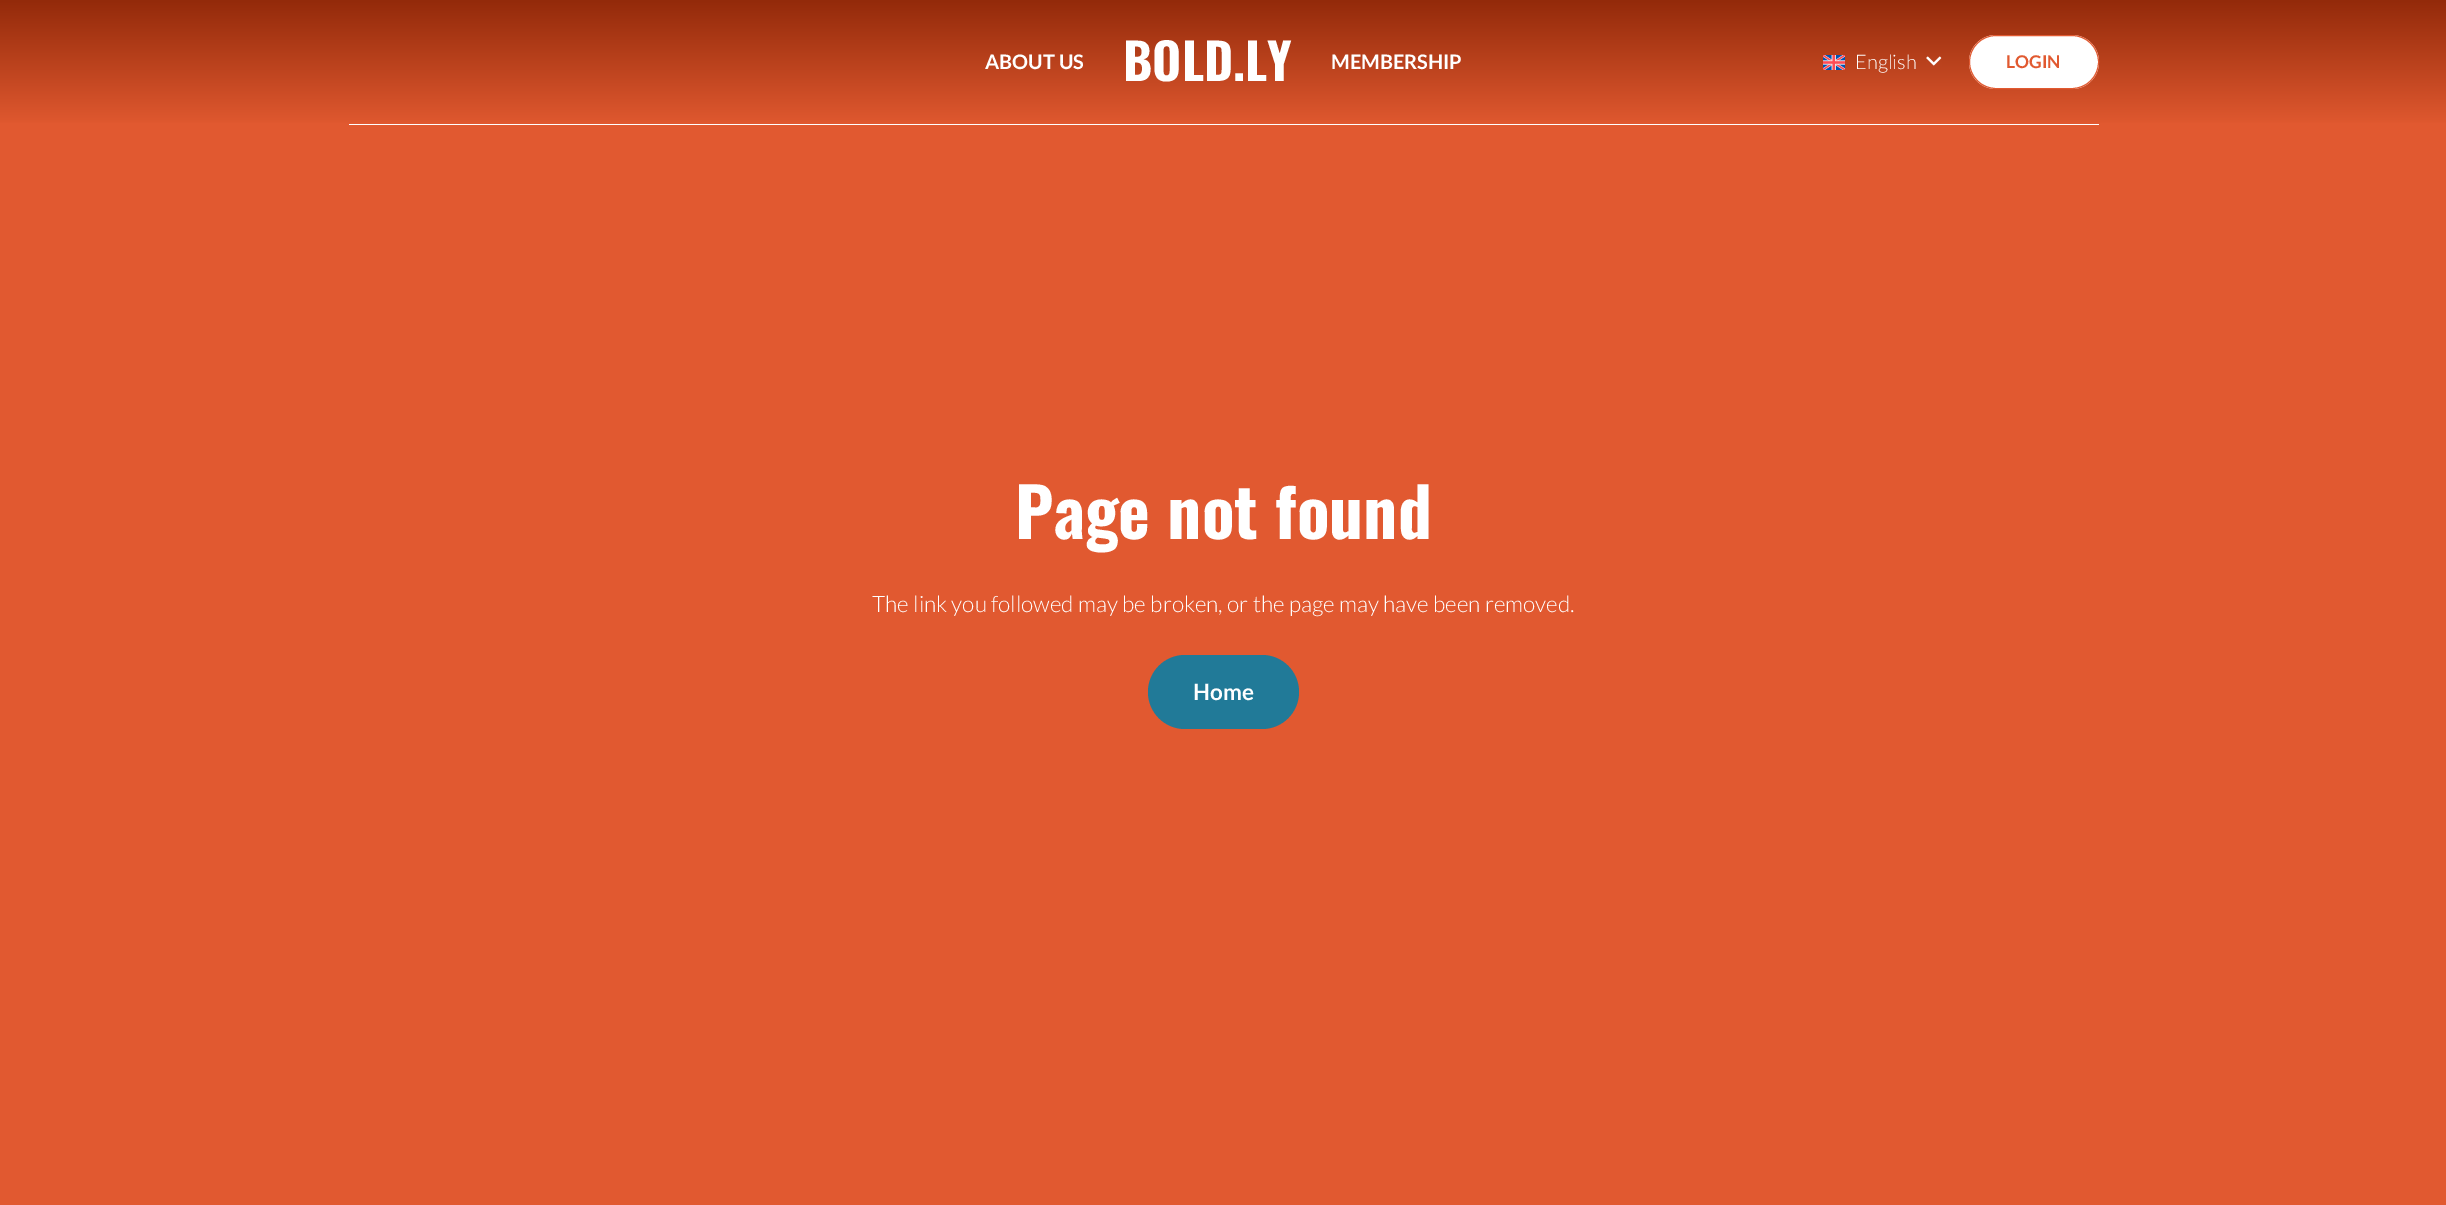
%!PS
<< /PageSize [2446 1205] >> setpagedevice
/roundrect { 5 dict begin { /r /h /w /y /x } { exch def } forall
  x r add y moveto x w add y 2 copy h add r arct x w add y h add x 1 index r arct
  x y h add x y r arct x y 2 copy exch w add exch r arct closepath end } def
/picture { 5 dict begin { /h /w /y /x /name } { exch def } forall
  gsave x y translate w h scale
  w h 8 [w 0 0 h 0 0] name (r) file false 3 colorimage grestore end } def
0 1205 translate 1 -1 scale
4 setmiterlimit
0.882 0.349 0.188 setrgbcolor
0 0 2446 1205 rectfill
gsave newpath 0 0 moveto 2446 0 lineto 2446 123 lineto 0 123 lineto closepath clip newpath
<< /ShadingType 2 /ColorSpace /DeviceRGB /Coords [1223 0 1223 125] /Extend [true true] /Function << /FunctionType 2 /Domain [0 1] /C0 [0.576 0.165 0.039] /C1 [0.878 0.349 0.188] /N 1 >> >> shfill grestore
1 setgray
349 124 1750 1 rectfill
/Lato-Bold [20 0 0 -20 0 0] selectfont
985 69 moveto (ABOUT US) show
/Oswald-Bold [50 0 0 -50 0 0] selectfont
1123 81 moveto (BOLD.LY) show
/Lato-Bold [20 0 0 -20 0 0] selectfont
1331 69 moveto (MEMBERSHIP) show
(img1.rgb) 1823 55 22 15 picture
/Lato-Light [20 0 0 -20 0 0] selectfont
1855 69 moveto (English) show
(img2.rgb) 1926 56 16 10 picture
1969 35 130 54 27 roundrect fill
0.882 0.349 0.188 setrgbcolor
1969.5 35.5 129 53 26.5 roundrect stroke
/Lato-Bold [17.5 0 0 -17.5 0 0] selectfont
2006 68 moveto (LOGIN) show
/Oswald-Bold [67.5 0 0 -67.5 0 0] selectfont
1 setgray
1015 539 moveto (Page not found) show
/Lato-Light [22.5 0 0 -22.5 0 0] selectfont
872 612 moveto (The link you followed may be broken, or the page may have been removed.) show
0.129 0.478 0.596 setrgbcolor
1148 655 151 74 37 roundrect fill
/Lato-Bold [22.5 0 0 -22.5 0 0] selectfont
1 setgray
1193 700 moveto (Home) show
showpage
